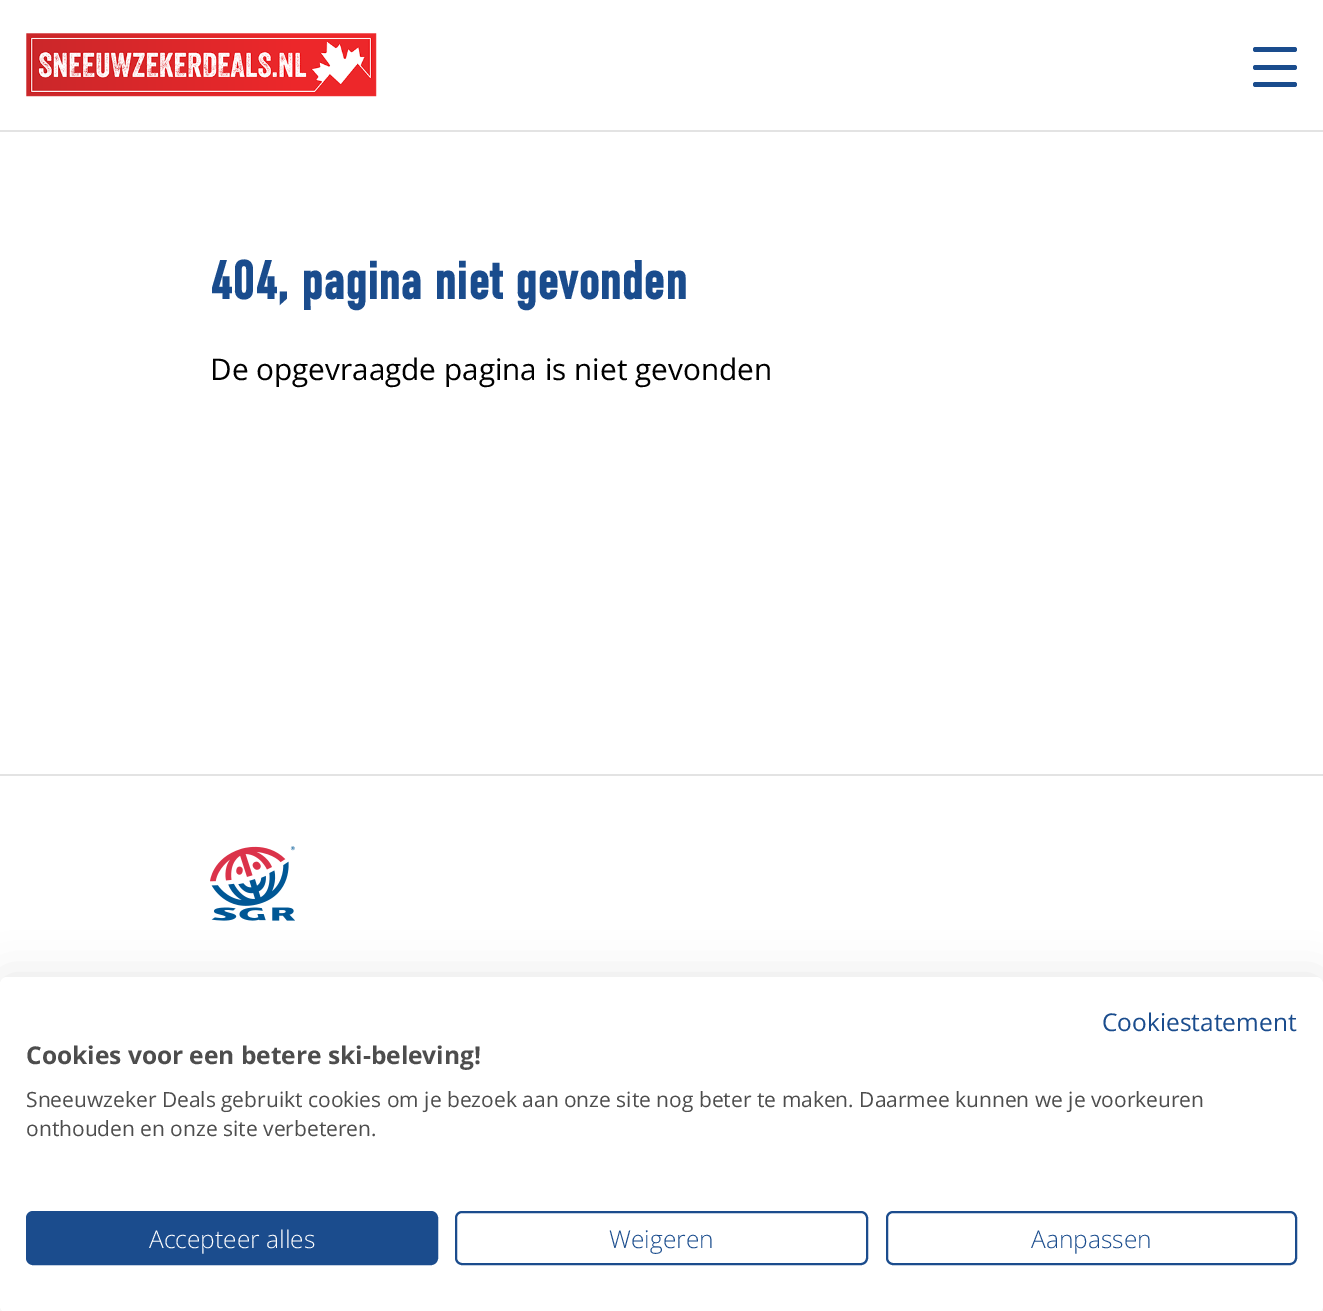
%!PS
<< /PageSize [1323 1311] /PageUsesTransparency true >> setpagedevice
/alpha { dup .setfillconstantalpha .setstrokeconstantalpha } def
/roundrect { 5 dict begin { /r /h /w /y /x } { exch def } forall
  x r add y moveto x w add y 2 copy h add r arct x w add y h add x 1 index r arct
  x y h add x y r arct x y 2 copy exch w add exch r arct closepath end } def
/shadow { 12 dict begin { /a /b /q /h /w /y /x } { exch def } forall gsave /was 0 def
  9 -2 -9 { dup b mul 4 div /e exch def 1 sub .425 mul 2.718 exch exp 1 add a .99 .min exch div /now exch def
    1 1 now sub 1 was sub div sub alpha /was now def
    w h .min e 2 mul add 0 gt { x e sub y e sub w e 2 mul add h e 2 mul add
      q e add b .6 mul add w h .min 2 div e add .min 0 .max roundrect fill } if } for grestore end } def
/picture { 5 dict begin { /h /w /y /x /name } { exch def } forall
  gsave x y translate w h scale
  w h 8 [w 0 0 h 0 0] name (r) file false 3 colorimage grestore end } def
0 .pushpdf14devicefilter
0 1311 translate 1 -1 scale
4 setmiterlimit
1 setgray
0 0 1323 1311 rectfill
0.89 setgray
0 130 1323 2 rectfill
(img1.rgb) 26 33 351 64 picture
0.102 0.298 0.553 setrgbcolor
1253 47 44 5 2.5 roundrect fill
1253 65 44 5 2.5 roundrect fill
1253 82 44 5 2.5 roundrect fill
/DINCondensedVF-Bold [53.75 0 0 -53.75 0 0] selectfont
210 299 moveto (404, pagina niet gevonden) show
/OpenSans-Regular [29.75 0 0 -29.75 0 0] selectfont
0 setgray
210 380 moveto (De opgevraagde pagina is niet gevonden) show
0.89 setgray
0 774 1323 2 rectfill
(img2.rgb) 210 846 85 75 picture
0 setgray
0 977 1323 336 7 21 0.1 shadow
1 setgray
0 977 1323 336 7 roundrect fill
/OpenSans-Regular [24.5 0 0 -24.5 0 0] selectfont
0.102 0.298 0.553 setrgbcolor
1102 1031 moveto (Cookiestatement) show
/OpenSans-Bold [24.5 0 0 -24.5 0 0] selectfont
0.302 setgray
26 1064 moveto (Cookies voor een betere ski-beleving!) show
/OpenSans-Regular [21 0 0 -21 0 0] selectfont
26 1107 moveto (Sneeuwzeker Deals gebruikt cookies om je bezoek aan onze site nog beter te maken. Daarmee kunnen we je voorkeuren) show
26 1136 moveto (onthouden en onze site verbeteren.) show
0.106 0.298 0.553 setrgbcolor
27 1212 410 52 6 roundrect gsave fill grestore
2 setlinewidth
stroke
/OpenSans-Light [24.5 0 0 -24.5 0 0] selectfont
1 setgray
149 1248 moveto (Accepteer alles) show
0.106 0.298 0.553 setrgbcolor
456 1212 411 52 6 roundrect stroke
0.102 0.298 0.553 setrgbcolor
609 1248 moveto (Weigeren) show
0.106 0.298 0.553 setrgbcolor
887 1212 409 52 6 roundrect stroke
0.102 0.298 0.553 setrgbcolor
1031 1248 moveto (Aanpassen) show
.poppdf14devicefilter showpage
